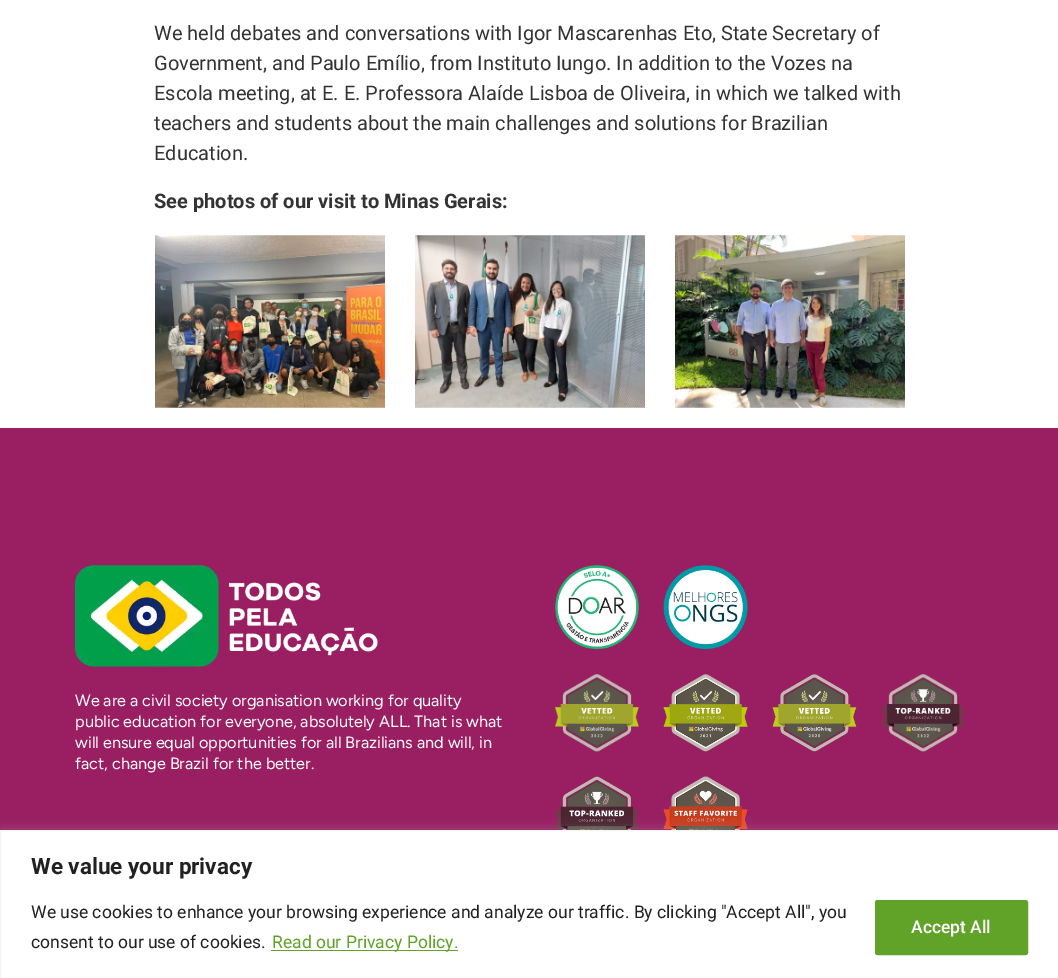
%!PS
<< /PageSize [1058 978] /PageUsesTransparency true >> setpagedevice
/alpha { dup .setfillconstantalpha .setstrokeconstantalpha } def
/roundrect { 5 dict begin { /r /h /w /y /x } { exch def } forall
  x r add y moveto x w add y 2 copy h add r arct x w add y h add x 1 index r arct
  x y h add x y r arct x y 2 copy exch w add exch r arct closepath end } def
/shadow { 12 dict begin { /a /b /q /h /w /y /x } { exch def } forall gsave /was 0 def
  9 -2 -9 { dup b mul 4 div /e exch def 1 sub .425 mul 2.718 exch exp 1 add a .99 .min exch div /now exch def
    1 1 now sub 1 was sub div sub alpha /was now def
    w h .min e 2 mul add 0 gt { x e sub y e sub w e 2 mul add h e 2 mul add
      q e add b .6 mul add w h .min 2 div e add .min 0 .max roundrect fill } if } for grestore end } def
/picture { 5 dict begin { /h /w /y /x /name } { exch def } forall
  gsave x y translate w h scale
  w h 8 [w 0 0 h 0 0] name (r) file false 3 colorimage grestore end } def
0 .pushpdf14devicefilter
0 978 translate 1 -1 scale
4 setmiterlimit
1 setgray
0 0 1058 978 rectfill
/Roboto-Regular [20 0 0 -20 0 0] selectfont
0.2 setgray
154 40 moveto (We held debates and conversations with Igor Mascarenhas Eto, State Secretary of) show
154 70 moveto (Government, and Paulo Emílio, from Instituto Iungo. In addition to the Vozes na) show
154 100 moveto (Escola meeting, at E. E. Professora Alaíde Lisboa de Oliveira, in which we talked with) show
154 130 moveto (teachers and students about the main challenges and solutions for Brazilian) show
154 160 moveto (Education.) show
/Roboto-Bold [20 0 0 -20 0 0] selectfont
154 208 moveto (See photos of our visit to Minas Gerais:) show
(img1.rgb) 155 235 230 173 picture
(img2.rgb) 415 235 230 173 picture
(img3.rgb) 675 235 230 173 picture
0.6 0.122 0.384 setrgbcolor
0 428 1058 402 rectfill
(img4.rgb) 75 565 303 102 picture
/Figtree-Regular [16.25 0 0 -16.25 0 0] selectfont
1 setgray
75 706 moveto (We are a civil society organisation working for quality) show
75 727 moveto (public education for everyone, absolutely ALL. That is what) show
75 748 moveto (will ensure equal opportunities for all Brazilians and will, in) show
75 769 moveto (fact, change Brazil for the better.) show
(img5.rgb) 555 565 84 84 picture
(img6.rgb) 663 565 85 84 picture
(img7.rgb) 555 674 84 78 picture
(img8.rgb) 663 674 85 78 picture
(img9.rgb) 772 674 85 78 picture
(img10.rgb) 881 674 84 78 picture
(img11.rgb) 555 776 84 54 picture
(img12.rgb) 663 776 85 54 picture
0.675 0.671 0.671 setrgbcolor
0 829 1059 149 0 6 0.3 shadow
1 setgray
newpath 0.5 830.5 moveto 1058.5 830.5 lineto 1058.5 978.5 lineto 0.5 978.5 lineto closepath gsave fill grestore
0.957 setgray
stroke
/Roboto-Bold [22.5 0 0 -22.5 0 0] selectfont
0.129 setgray
31 874 moveto (We value your privacy) show
/Roboto-Regular [17.5 0 0 -17.5 0 0] selectfont
31 918 moveto (We use cookies to enhance your browsing experience and analyze our traffic. By clicking "Accept All", you) show
31 948 moveto (consent to our use of cookies.) show
0.38 0.635 0.161 setrgbcolor
271 950 187 1 rectfill
272 948 moveto (Read our Privacy Policy.) show
876.5 901.5 150 52 1 roundrect gsave fill grestore
3 setlinewidth
stroke
/Roboto-Medium [17.5 0 0 -17.5 0 0] selectfont
1 setgray
911 933 moveto (Accept All) show
.poppdf14devicefilter showpage
